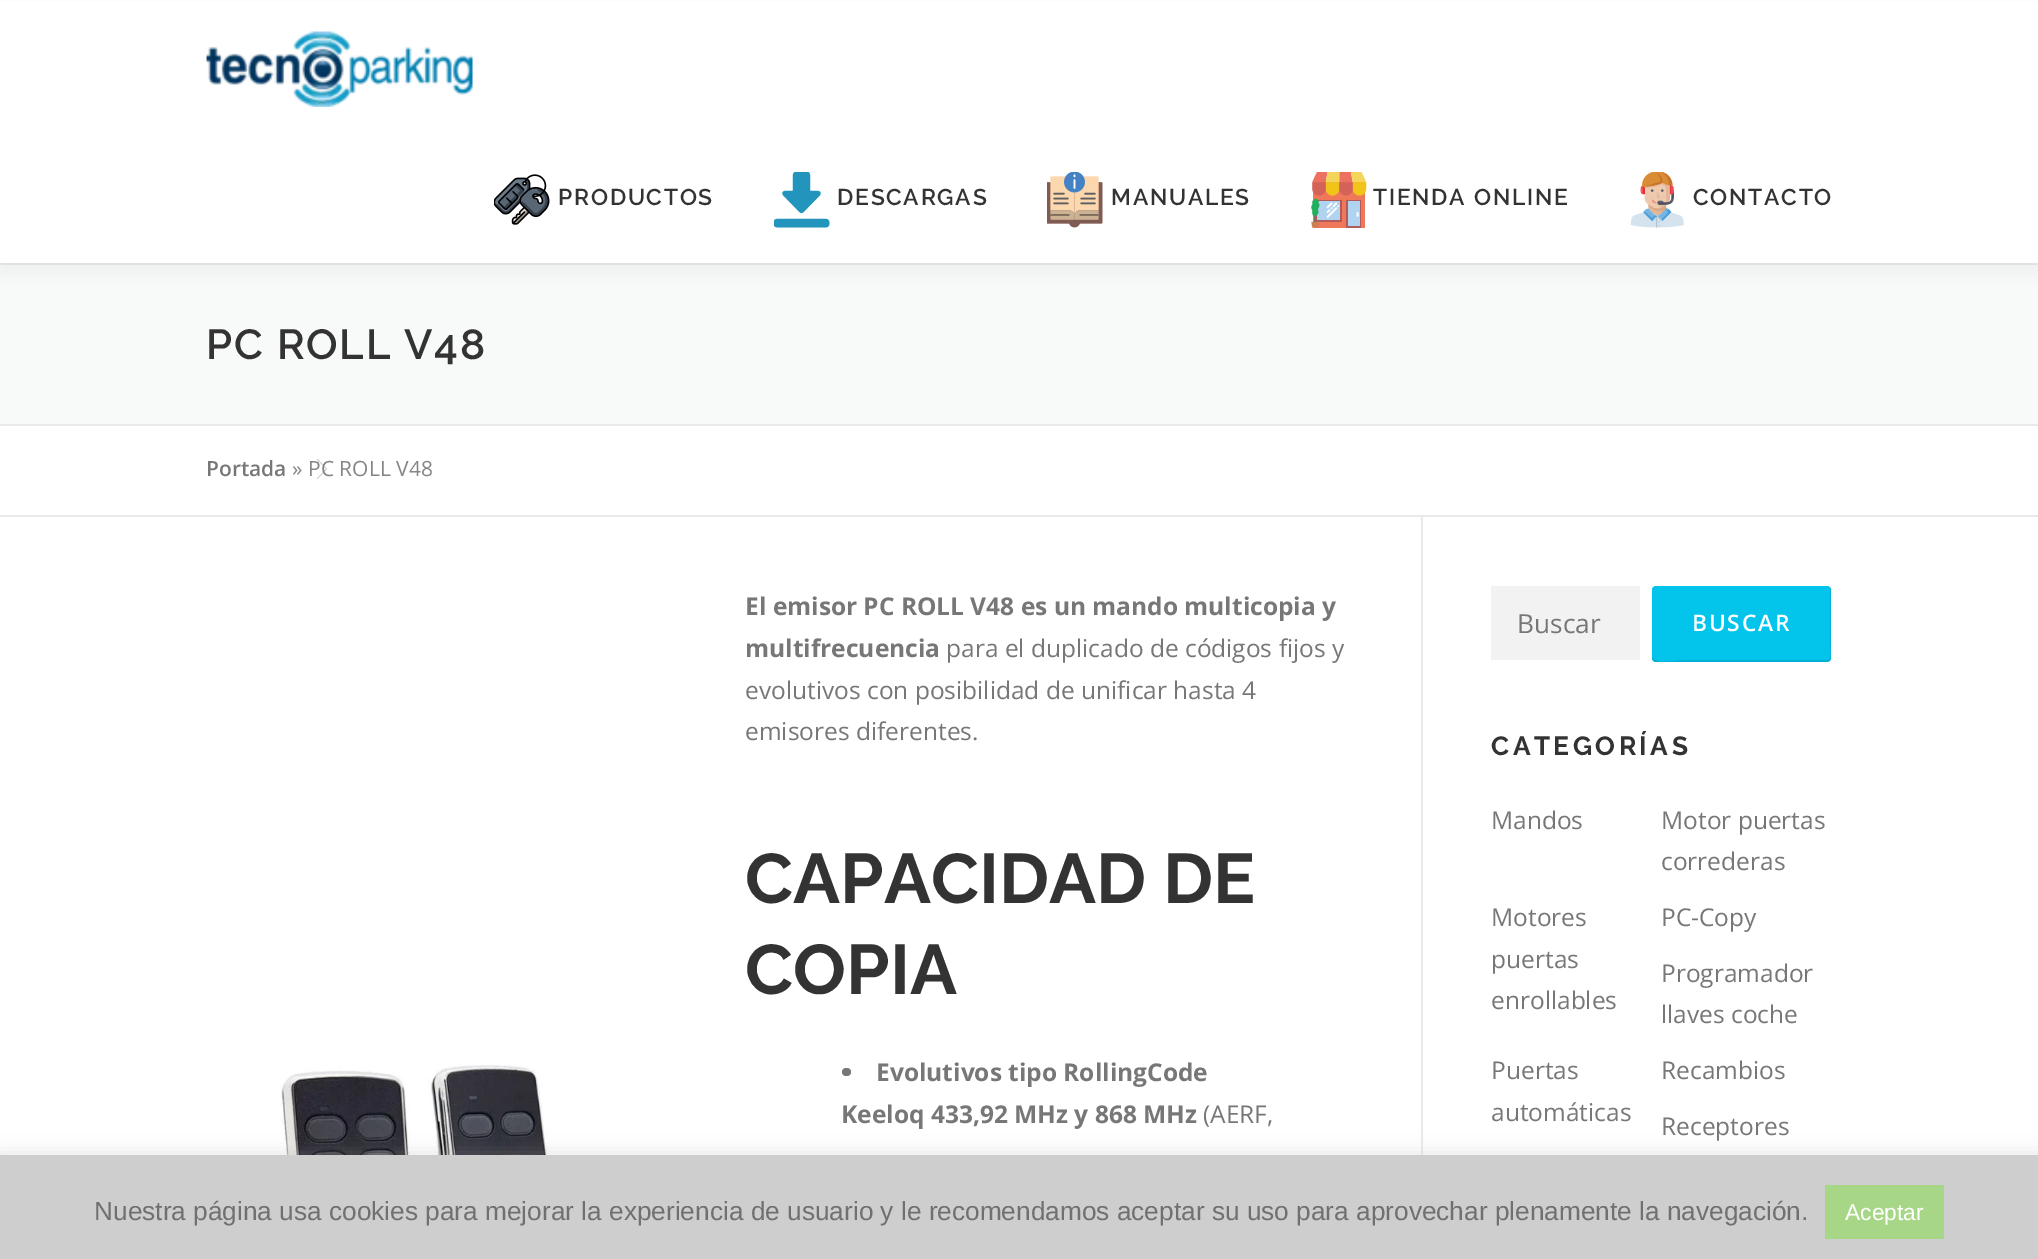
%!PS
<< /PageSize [2038 1259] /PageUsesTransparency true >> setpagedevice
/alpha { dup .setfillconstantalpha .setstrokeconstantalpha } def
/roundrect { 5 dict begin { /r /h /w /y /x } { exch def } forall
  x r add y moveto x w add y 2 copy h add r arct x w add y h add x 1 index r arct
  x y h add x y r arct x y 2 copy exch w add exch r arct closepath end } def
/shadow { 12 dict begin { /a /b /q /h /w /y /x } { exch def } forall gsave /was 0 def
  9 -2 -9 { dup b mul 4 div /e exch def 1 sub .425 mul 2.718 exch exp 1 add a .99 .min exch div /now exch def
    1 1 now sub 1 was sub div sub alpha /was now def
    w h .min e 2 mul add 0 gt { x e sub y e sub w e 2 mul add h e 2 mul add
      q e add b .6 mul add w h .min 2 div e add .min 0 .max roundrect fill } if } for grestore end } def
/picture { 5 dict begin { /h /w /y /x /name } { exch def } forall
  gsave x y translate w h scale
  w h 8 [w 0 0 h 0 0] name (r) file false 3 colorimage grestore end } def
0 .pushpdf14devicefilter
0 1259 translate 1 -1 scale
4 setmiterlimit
1 setgray
0 0 2038 1259 rectfill
0.973 0.976 0.976 setrgbcolor
0 265 2038 159 rectfill
0.914 setgray
0 263 2038 2 rectfill
0.196 setgray
0 9 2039 262 0 9 0.06 shadow
1 setgray
0 2 2038 261 rectfill
(img1.rgb) 206 31 267 76 picture
(img2.rgb) 494 174 56 51 picture
/Raleway-SemiBold [22.75 0 0 -22.75 0 0] selectfont
0.2 setgray
558 205 moveto 1.75 0 (PRODUCTOS) ashow
(img3.rgb) 774 172 56 56 picture
837 205 moveto 1.75 0 (DESCARGAS) ashow
(img4.rgb) 1047 172 56 56 picture
1111 205 moveto 1.75 0 (MANUALES) ashow
(img5.rgb) 1311 172 56 56 picture
1373 205 moveto 1.75 0 (TIENDA ONLINE) ashow
(img6.rgb) 1630 172 54 56 picture
1693 205 moveto 1.75 0 (CONTACTO) ashow
0.914 setgray
0 424 2038 2 rectfill
/Raleway-SemiBold [42 0 0 -42 0 0] selectfont
0.2 setgray
206 359 moveto 1.75 0 (PC ROLL V48) ashow
0.914 setgray
0 515 2038 2 rectfill
/OpenSans-SemiBold [21 0 0 -21 0 0] selectfont
0.467 setgray
206 476 moveto (Portada) show
0.8 setgray
newpath 317 479.5 moveto 317 458.5 lineto 327 469 lineto closepath fill
1 setgray
newpath 317 478 moveto 317 460 lineto 325.5 469 lineto closepath fill
/OpenSans-Regular [21 0 0 -21 0 0] selectfont
0.522 setgray
292 476 moveto (») show
308 476 moveto (PC ROLL V48) show
0.914 setgray
1421 516 2 639 rectfill
(img7.rgb) 280 1064 281 91 picture
/OpenSans-Bold [24.5 0 0 -24.5 0 0] selectfont
0.467 setgray
745 615 moveto (El emisor PC ROLL V48 es un mando multicopia y) show
745 657 moveto (multifrecuencia) show
/OpenSans-Regular [24.5 0 0 -24.5 0 0] selectfont
946 657 moveto (para el duplicado de códigos fijos y) show
745 699 moveto (evolutivos con posibilidad de unificar hasta 4) show
745 740 moveto (emisores diferentes.) show
/Raleway-Bold [70 0 0 -70 0 0] selectfont
0.2 setgray
745 903 moveto (CAPACIDAD DE) show
745 994 moveto (COPIA) show
0.467 setgray
842 1068 9 8 4 roundrect fill
/OpenSans-Bold [24.5 0 0 -24.5 0 0] selectfont
876 1081 moveto (Evolutivos tipo RollingCode) show
841 1123 moveto (Keeloq 433,92 MHz y 868 MHz) show
/OpenSans-Regular [24.5 0 0 -24.5 0 0] selectfont
1203 1123 moveto (\(AERF,) show
0.949 setgray
1491 586 149 74 rectfill
/OpenSans-Regular [26.25 0 0 -26.25 0 0] selectfont
0.467 setgray
1517 633 moveto (Buscar) show
0.012 0.769 0.922 setrgbcolor
1652 586 179 76 4 roundrect fill
0.1 alpha
0 setgray
newpath 1652 656 moveto 1652 658 lineto 1652 660 1654 662 1656 662 curveto 1827 662 lineto 1829 662 1831 660 1831 658 curveto 1831 590 lineto 1831 589 1831 588 1830 587 curveto 1830 645 lineto 1830 651 1832 660 1827 660 curveto 1684 660 lineto 1679 660 1652 665 1652 656 curveto closepath fill
/OpenSans-SemiBold [22.75 0 0 -22.75 0 0] selectfont
1 alpha
1 setgray
1692 631 moveto 1.75 0 (BUSCAR) ashow
/Raleway-Bold [26.25 0 0 -26.25 0 0] selectfont
0.2 setgray
1491 755 moveto 3.5 0 (CATEGORÍAS) ashow
/OpenSans-Regular [24.5 0 0 -24.5 0 0] selectfont
0.467 setgray
1491 829 moveto (Mandos) show
1661 829 moveto (Motor puertas) show
1661 870 moveto (correderas) show
1491 926 moveto (Motores) show
1491 968 moveto (puertas) show
1491 1009 moveto (enrollables) show
1661 926 moveto (PC-Copy) show
1661 982 moveto (Programador) show
1661 1023 moveto (llaves coche) show
1491 1079 moveto (Puertas) show
1491 1121 moveto (automáticas) show
1661 1079 moveto (Recambios) show
1661 1135 moveto (Receptores) show
0.675 0.671 0.671 setrgbcolor
0 1153 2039 105 0 9 0.3 shadow
0.808 setgray
0 1155 2038 104 rectfill
/LiberationSans-Regular [26.25 0 0 -26.25 0 0] selectfont
0.439 setgray
94 1220 moveto (Nuestra página usa cookies para mejorar la experiencia de usuario y le recomendamos aceptar su uso para aprovechar plenamente la navegación.) show
0.655 0.839 0.525 setrgbcolor
1825 1185 119 54 rectfill
/LiberationSans-Regular [22.75 0 0 -22.75 0 0] selectfont
1 setgray
1845 1220 moveto (Aceptar) show
.poppdf14devicefilter showpage
